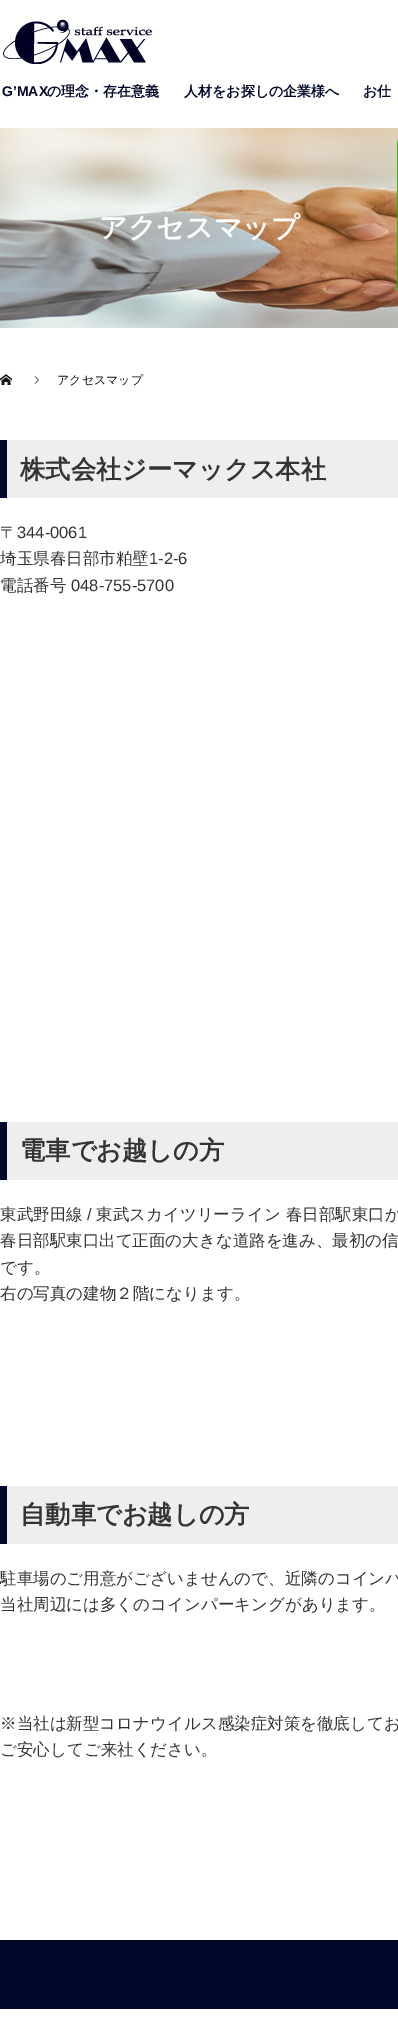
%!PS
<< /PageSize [398 2032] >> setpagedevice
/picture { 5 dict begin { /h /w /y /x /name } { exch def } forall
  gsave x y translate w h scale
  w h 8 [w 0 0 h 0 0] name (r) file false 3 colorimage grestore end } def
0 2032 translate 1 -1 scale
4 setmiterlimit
1 setgray
0 0 398 2032 rectfill
(img1.rgb) 3 19 149 45 picture
/LiberationSans-Bold [14 0 0 -14 0 0] selectfont
0.004 0.027 0.161 setrgbcolor
2 96 moveto (G’MAX) show
/WenQuanYiZenHei-Bold [14 0 0 -14 0 0] selectfont
47 96 moveto (の理念・存在意義) show
184 96 moveto (人材をお探しの企業様へ) show
363 96 moveto (お仕) show
(img2.rgb) 0 128 398 200 picture
/WenQuanYiZenHei-Bold [28 0 0 -28 0 0] selectfont
1 setgray
99 237 moveto (アクセスマップ) show
(img3.rgb) 397 139 1 154 picture
(img4.rgb) 0 374 12 11 picture
(img5.rgb) 34 376 5 8 picture
/WenQuanYiZenHei-Medium [12 0 0 -12 0 0] selectfont
0.067 setgray
57 384 moveto (アクセスマップ) show
0.933 setgray
7 440 391 58 rectfill
0.004 0.027 0.161 setrgbcolor
0 440 7 58 rectfill
/WenQuanYiZenHei-Bold [25.25 0 0 -25.25 0 0] selectfont
0.2 setgray
20 478 moveto (株式会社ジーマックス本社) show
/WenQuanYiZenHei-Medium [16.5 0 0 -16.5 0 0] selectfont
0 538 moveto (〒) show
/LiberationSans-Regular [16.5 0 0 -16.5 0 0] selectfont
17 538 moveto (344-0061) show
/WenQuanYiZenHei-Medium [16.5 0 0 -16.5 0 0] selectfont
0 564 moveto (埼玉県春日部市粕壁) show
/LiberationSans-Regular [16.5 0 0 -16.5 0 0] selectfont
149 564 moveto (1-2-6) show
/WenQuanYiZenHei-Medium [16.5 0 0 -16.5 0 0] selectfont
0 591 moveto (電話番号) show
/LiberationSans-Regular [16.5 0 0 -16.5 0 0] selectfont
71 591 moveto (048-755-5700) show
0.933 setgray
7 1122 391 58 rectfill
0.004 0.027 0.161 setrgbcolor
0 1122 7 58 rectfill
/WenQuanYiZenHei-Bold [25.25 0 0 -25.25 0 0] selectfont
0.2 setgray
20 1159 moveto (電車でお越しの方) show
/WenQuanYiZenHei-Medium [16.5 0 0 -16.5 0 0] selectfont
0 1220 moveto (東武野田線) show
/LiberationSans-Regular [16.5 0 0 -16.5 0 0] selectfont
87 1220 moveto (/) show
/WenQuanYiZenHei-Medium [16.5 0 0 -16.5 0 0] selectfont
96 1220 moveto (東武スカイツリーライン 春日部駅東口か) show
0 1246 moveto (春日部駅東口出て正面の大きな道路を進み、最初の信) show
0 1273 moveto (です。) show
0 1299 moveto (右の写真の建物２階になります。) show
0.933 setgray
7 1486 391 58 rectfill
0.004 0.027 0.161 setrgbcolor
0 1486 7 58 rectfill
/WenQuanYiZenHei-Bold [25.25 0 0 -25.25 0 0] selectfont
0.2 setgray
20 1523 moveto (自動車でお越しの方) show
/WenQuanYiZenHei-Medium [16.5 0 0 -16.5 0 0] selectfont
0 1584 moveto (駐車場のご用意がございませんので、近隣のコインパ) show
0 1610 moveto (当社周辺には多くのコインパーキングがあります。) show
0 1729 moveto (※当社は新型コロナウイルス感染症対策を徹底してお) show
0 1755 moveto (ご安心してご来社ください。) show
0.004 0.027 0.161 setrgbcolor
0 1940 398 69 rectfill
showpage
